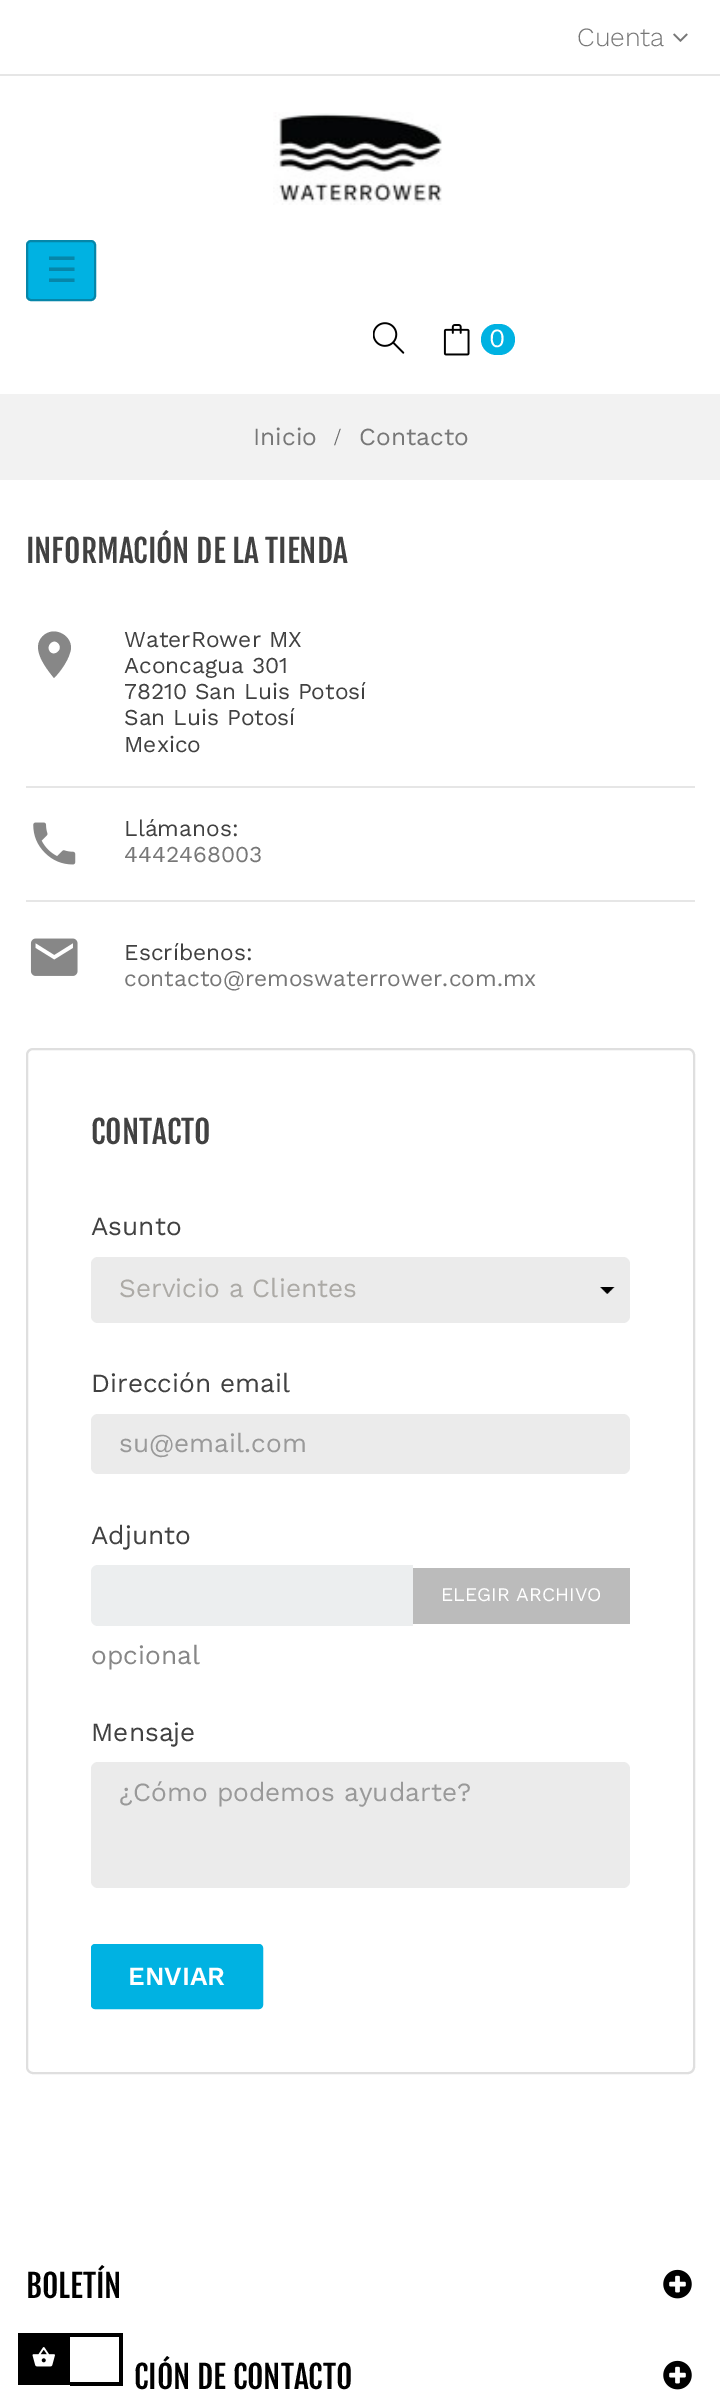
%!PS
<< /PageSize [720 2402] >> setpagedevice
/roundrect { 5 dict begin { /r /h /w /y /x } { exch def } forall
  x r add y moveto x w add y 2 copy h add r arct x w add y h add x 1 index r arct
  x y h add x y r arct x y 2 copy exch w add exch r arct closepath end } def
/picture { 5 dict begin { /h /w /y /x /name } { exch def } forall
  gsave x y translate w h scale
  w h 8 [w 0 0 h 0 0] name (r) file false 3 colorimage grestore end } def
0 2402 translate 1 -1 scale
4 setmiterlimit
1 setgray
0 0 720 2402 rectfill
0.902 setgray
0 74 720 2 rectfill
/WorkSans-Light [26.25 0 0 -26.25 0 0] selectfont
0.467 setgray
577 46 moveto (Cuenta) show
(img1.rgb) 673 33 15 9 picture
(img2.rgb) 273 112 169 93 picture
0 0.698 0.886 setrgbcolor
27 241 68 59 4 roundrect gsave fill grestore
0.024 0.525 0.663 setrgbcolor
2 setlinewidth
stroke
/DejaVuSans-Regular [35 0 0 -35 0 0] selectfont
46 282 moveto (☰) show
(img3.rgb) 373 322 32 32 picture
(img4.rgb) 443 324 27 32 picture
0 0.698 0.886 setrgbcolor
481 324 34 31 15.5 roundrect fill
/WorkSans-Regular [26.25 0 0 -26.25 0 0] selectfont
1 setgray
489 347 moveto (0) show
0.949 setgray
0 394 720 86 rectfill
/WorkSans-Regular [24.5 0 0 -24.5 0 0] selectfont
0.467 setgray
253 445 moveto (Inicio) show
/LiberationSerif-Regular [24.5 0 0 -24.5 0 0] selectfont
0.412 setgray
334 445 moveto (/) show
/WorkSans-Regular [24.5 0 0 -24.5 0 0] selectfont
0.467 setgray
359 445 moveto (Contacto) show
/FjallaOne-Regular [31.5 0 0 -31.5 0 0] selectfont
0.255 setgray
26 563 moveto (INFORMACIÓN DE LA TIENDA) show
0.529 setgray
newpath 50 652 moveto 55 657 64 649 58 643 curveto 53 638 45 646 50 652 curveto closepath 43 636 moveto 53 626 71 634 71 648 curveto 70 658 61 671 54 678 curveto 46 668 30 648 43 636 curveto closepath fill
/WorkSans-Regular [22.75 0 0 -22.75 0 0] selectfont
0.255 setgray
124 647 moveto (WaterRower MX) show
124 673 moveto (Aconcagua 301) show
124 699 moveto (78210 San Luis Potosí) show
124 725 moveto (San Luis Potosí) show
124 752 moveto (Mexico) show
0.902 setgray
26 786 669 2 rectfill
(img5.rgb) 33 822 43 43 picture
0.255 setgray
124 836 moveto (Llámanos:) show
0.467 setgray
124 862 moveto (4442468003) show
0.902 setgray
26 900 669 2 rectfill
(img6.rgb) 30 938 48 38 picture
0.255 setgray
124 960 moveto (Escríbenos:) show
0.467 setgray
124 986 moveto (contacto@remoswaterrower.com.mx) show
0.875 setgray
27 1049 667 1024 6 roundrect stroke
/FjallaOne-Regular [31.5 0 0 -31.5 0 0] selectfont
0.255 setgray
91 1144 moveto (CONTACTO) show
/WorkSans-Regular [26.25 0 0 -26.25 0 0] selectfont
91 1235 moveto (Asunto) show
0.922 setgray
91 1257 539 66 7 roundrect fill
(img7.rgb) 600 1287 15 7 picture
0.675 0.667 0.651 setrgbcolor
119 1297 moveto (Servicio a Clientes) show
0.255 setgray
91 1392 moveto (Dirección email) show
0.922 setgray
91 1414 539 60 7 roundrect fill
0.6 setgray
119 1452 moveto (su@email.com) show
0.255 setgray
91 1544 moveto (Adjunto) show
0.925 0.933 0.937 setrgbcolor
newpath 98 1565 moveto 413 1565 lineto 413 1626 lineto 98 1626 lineto 94 1626 91 1623 91 1619 curveto 91 1572 lineto 91 1568 94 1565 98 1565 curveto closepath fill
0.733 setgray
413 1568 217 56 rectfill
/WorkSans-Regular [19.25 0 0 -19.25 0 0] selectfont
1 setgray
441 1601 moveto (ELEGIR ARCHIVO) show
/WorkSans-Regular [26.25 0 0 -26.25 0 0] selectfont
0.529 setgray
91 1664 moveto (opcional) show
0.255 setgray
91 1741 moveto (Mensaje) show
0.922 setgray
91 1762 539 126 7 roundrect fill
0.6 setgray
119 1801 moveto (¿Cómo podemos ayudarte?) show
0 0.698 0.886 setrgbcolor
92 1945 170 63 3 roundrect gsave fill grestore
stroke
/WorkSans-SemiBold [26.25 0 0 -26.25 0 0] selectfont
1 setgray
128 1985 moveto (ENVIAR) show
/FjallaOne-Regular [31.5 0 0 -31.5 0 0] selectfont
0 setgray
26 2298 moveto (BOLETÍN) show
(img8.rgb) 663 2269 29 30 picture
134 2389 moveto (CIÓN DE CONTACTO) show
(img8.rgb) 663 2360 29 30 picture
18 2333 105 52 rectfill
(img9.rgb) 32 2347 23 20 picture
1 setgray
70 2337 49 45 rectfill
0 setgray
70 2385 53 1 rectfill
showpage
